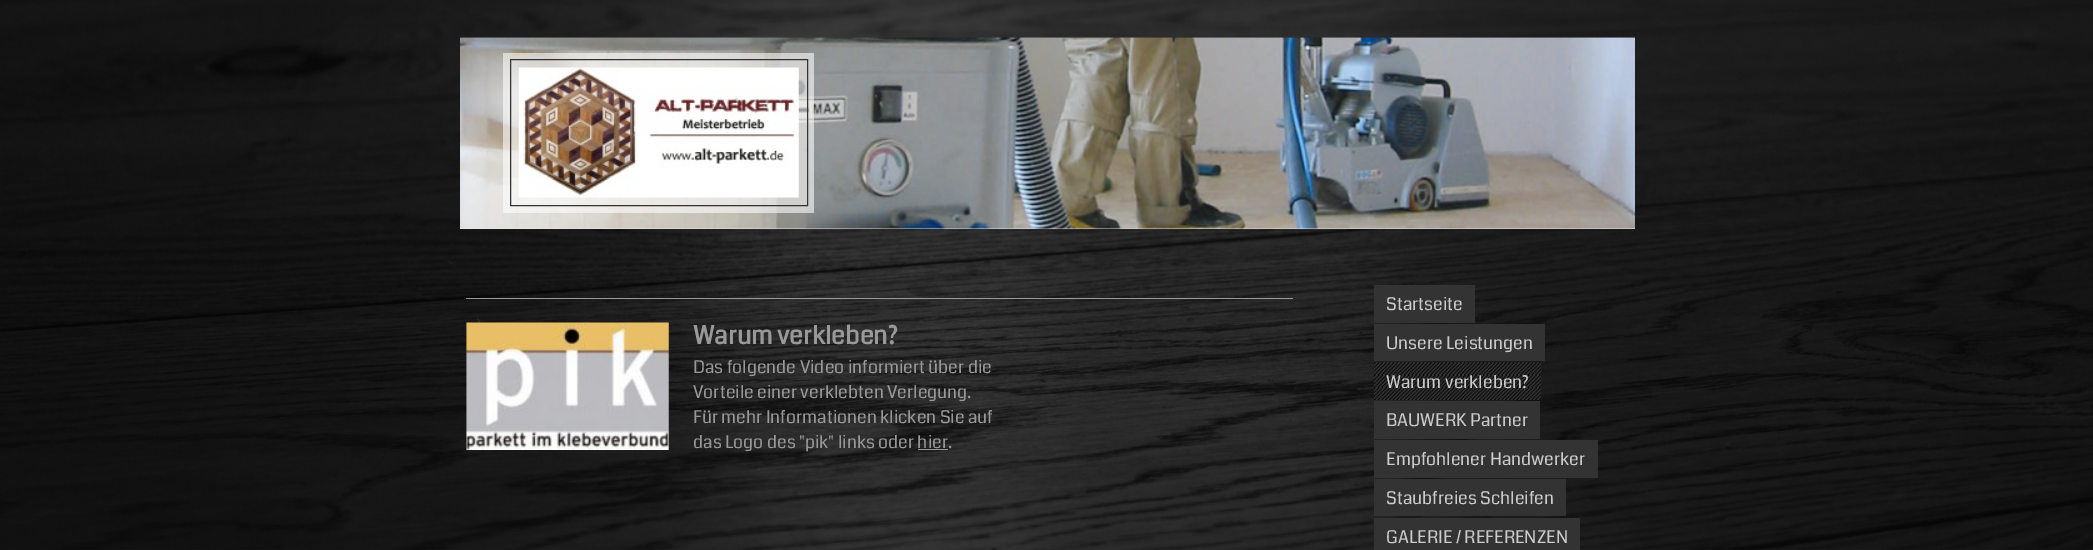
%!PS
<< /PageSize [2093 550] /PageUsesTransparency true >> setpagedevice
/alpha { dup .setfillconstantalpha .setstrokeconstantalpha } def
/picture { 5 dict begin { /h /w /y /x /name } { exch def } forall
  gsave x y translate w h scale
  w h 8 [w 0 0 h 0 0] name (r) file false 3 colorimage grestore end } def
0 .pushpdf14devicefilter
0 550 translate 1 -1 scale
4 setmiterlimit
1 setgray
0 0 2093 550 rectfill
(img1.rgb) 0 0 2093 550 picture
(img2.rgb) 460 37 1175 1 picture
0.933 setgray
460 228 1175 1 rectfill
(img3.rgb) 460 37 1175 192 picture
0.58 alpha
1 setgray
503 53 311 160 rectfill
1 alpha
0.2 setgray
510.5 59.5 297 146 rectstroke
(img4.rgb) 518 67 281 131 picture
0.6 setgray
466 298 827 1 rectfill
(img5.rgb) 466 322 203 128 picture
/Coda-Bold [25 0 0 -25 0 0] selectfont
693 344 moveto (Warum verkleben?) show
/Coda-Regular [17.5 0 0 -17.5 0 0] selectfont
693 373 moveto (Das folgende Video informiert über die) show
693 398 moveto (Vorteile einer verklebten Verlegung.) show
693 423 moveto (Für mehr Informationen klicken Sie auf) show
693 448 moveto (das Logo des "pik" links oder hier.) show
918 449 30 1 rectfill
0.2 setgray
1374 285 101 38 rectfill
0.8 setgray
1386 310 moveto (Startseite) show
0.2 setgray
1374 324 171 37 rectfill
0.8 setgray
1386 349 moveto (Unsere Leistungen) show
(img6.rgb) 1373 362 169 38 picture
1386 388 moveto (Warum verkleben?) show
0.2 setgray
1374 401 166 38 rectfill
0.8 setgray
1386 426 moveto (BAUWERK Partner) show
0.2 setgray
1374 440 224 38 rectfill
0.8 setgray
1386 465 moveto (Empfohlener Handwerker) show
0.2 setgray
1374 479 192 37 rectfill
0.8 setgray
1386 504 moveto (Staubfreies Schleifen) show
0.2 setgray
1374 518 206 32 rectfill
0.8 setgray
1386 543 moveto (GALERIE / REFERENZEN) show
.poppdf14devicefilter showpage
